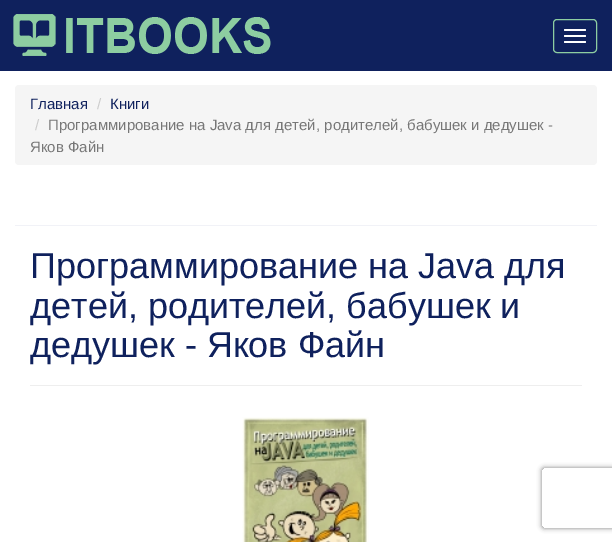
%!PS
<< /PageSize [612 542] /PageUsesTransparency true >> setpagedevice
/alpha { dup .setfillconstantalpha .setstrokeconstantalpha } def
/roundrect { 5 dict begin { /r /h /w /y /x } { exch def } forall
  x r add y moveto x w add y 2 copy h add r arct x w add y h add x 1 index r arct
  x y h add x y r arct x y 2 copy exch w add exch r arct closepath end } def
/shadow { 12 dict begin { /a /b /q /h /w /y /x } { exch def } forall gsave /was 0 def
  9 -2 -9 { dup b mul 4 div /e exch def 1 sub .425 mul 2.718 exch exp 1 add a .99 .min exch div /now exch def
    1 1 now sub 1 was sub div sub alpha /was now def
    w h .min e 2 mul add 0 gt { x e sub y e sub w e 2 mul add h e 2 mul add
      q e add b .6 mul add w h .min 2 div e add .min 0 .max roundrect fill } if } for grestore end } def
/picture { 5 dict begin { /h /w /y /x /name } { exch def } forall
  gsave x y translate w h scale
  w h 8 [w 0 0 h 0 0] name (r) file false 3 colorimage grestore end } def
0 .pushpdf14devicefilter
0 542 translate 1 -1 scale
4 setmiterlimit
1 setgray
0 0 612 542 rectfill
0.059 0.129 0.365 setrgbcolor
0 0 612 71 rectfill
(img1.rgb) 13 14 258 42 picture
0.553 0.804 0.631 setrgbcolor
553.5 19.5 43 33 3.5 roundrect stroke
1 setgray
564 29 22 2 1 roundrect fill
564 35 22 2 1 roundrect fill
564 41 22 2 1 roundrect fill
0.961 setgray
15 85 582 80 4 roundrect fill
/LiberationSans-Regular [15 0 0 -15 0 0] selectfont
0.059 0.129 0.365 setrgbcolor
30 109 moveto (Главная) show
0.8 setgray
97 109 moveto (/) show
0.059 0.129 0.365 setrgbcolor
110 109 moveto (Книги) show
0.8 setgray
35 130 moveto (/) show
0.467 setgray
48 130 moveto (Программирование на Java для детей, родителей, бабушек и дедушек -) show
30 152 moveto (Яков Файн) show
0.945 0.949 0.969 setrgbcolor
15 225 582 1 rectfill
/LiberationSans-Regular [36 0 0 -36 0 0] selectfont
0.059 0.129 0.365 setrgbcolor
30 278 moveto (Программирование на Java для) show
30 318 moveto (детей, родителей, бабушек и) show
30 357 moveto (дедушек - Яков Файн) show
0.933 setgray
30 385 552 1 rectfill
(img2.rgb) 242 417 127 125 picture
gsave
newpath 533 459 moveto 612 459 lineto 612 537 lineto 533 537 lineto closepath 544 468 moveto 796 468 lineto 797 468 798 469 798 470 curveto 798 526 lineto 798 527 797 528 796 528 curveto 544 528 lineto 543 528 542 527 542 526 curveto 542 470 lineto 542 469 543 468 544 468 curveto closepath eoclip newpath
0.502 setgray
542 468 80 60 2 2.5 1 shadow
grestore
.poppdf14devicefilter showpage
